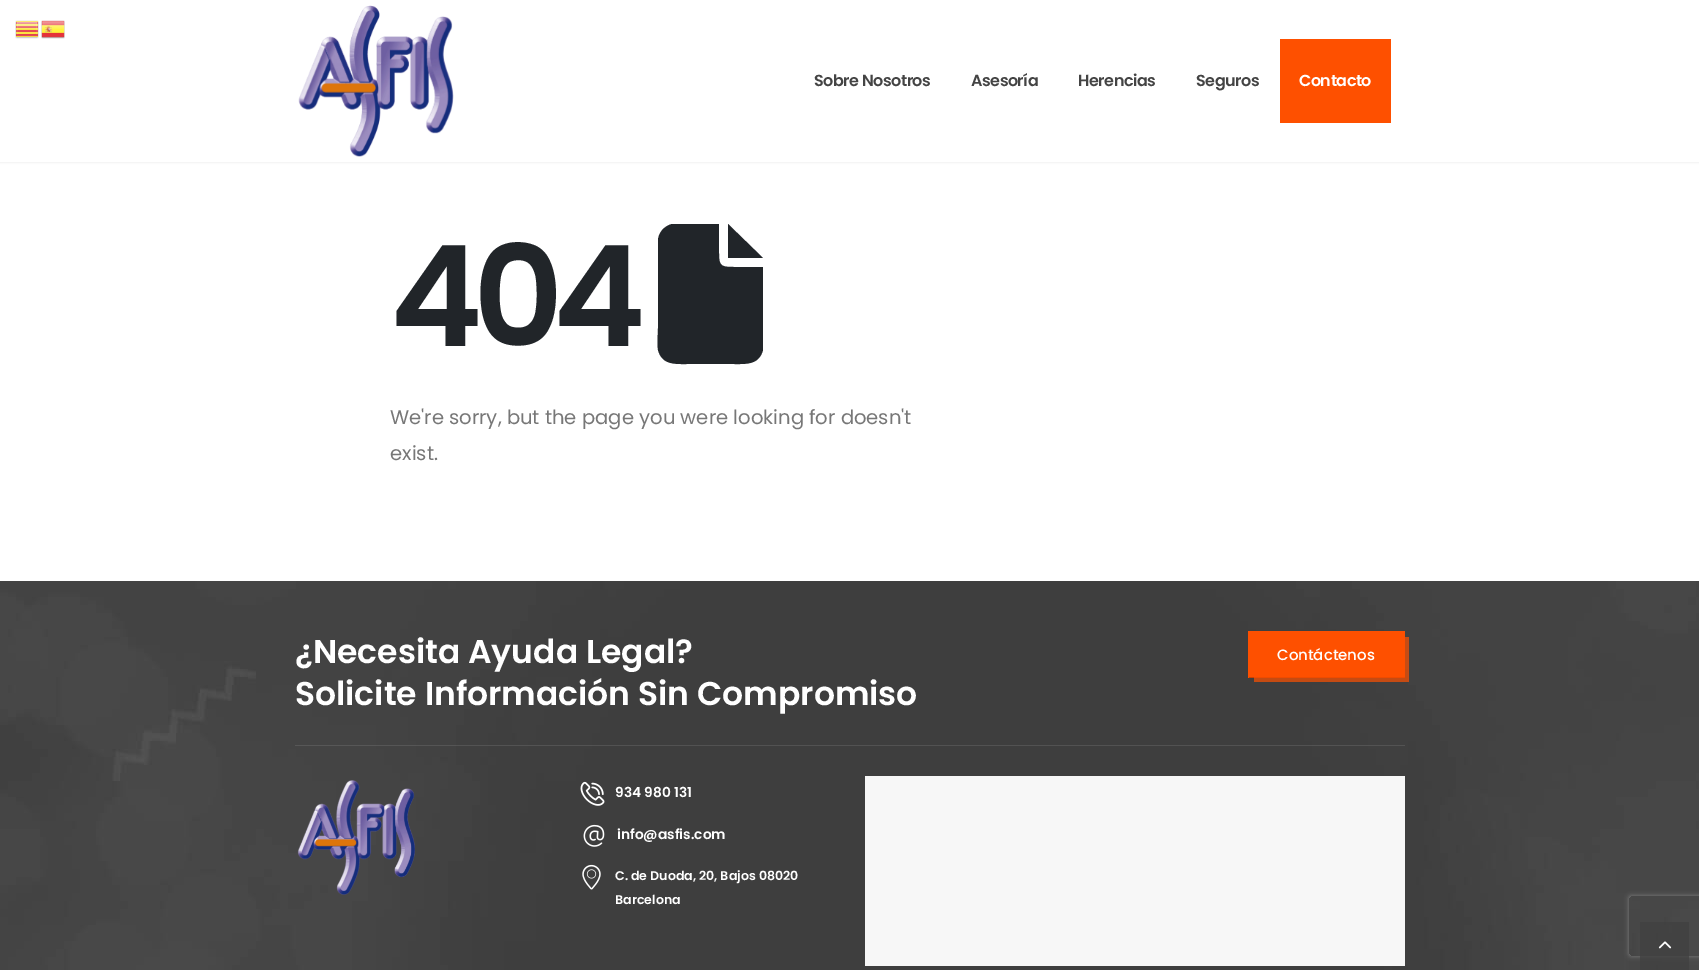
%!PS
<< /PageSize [1699 970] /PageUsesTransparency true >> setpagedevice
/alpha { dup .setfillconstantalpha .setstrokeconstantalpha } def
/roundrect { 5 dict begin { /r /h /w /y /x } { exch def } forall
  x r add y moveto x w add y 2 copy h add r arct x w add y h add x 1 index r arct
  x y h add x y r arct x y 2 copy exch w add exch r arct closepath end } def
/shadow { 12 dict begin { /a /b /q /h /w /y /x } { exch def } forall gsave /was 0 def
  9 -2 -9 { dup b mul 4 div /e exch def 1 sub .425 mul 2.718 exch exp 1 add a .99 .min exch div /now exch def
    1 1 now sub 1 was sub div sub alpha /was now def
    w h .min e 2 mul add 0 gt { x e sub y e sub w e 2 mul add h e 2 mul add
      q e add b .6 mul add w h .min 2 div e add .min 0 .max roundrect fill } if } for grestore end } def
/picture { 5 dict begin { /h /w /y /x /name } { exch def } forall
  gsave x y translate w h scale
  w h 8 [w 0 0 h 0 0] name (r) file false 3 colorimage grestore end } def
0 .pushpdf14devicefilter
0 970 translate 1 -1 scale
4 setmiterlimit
1 setgray
0 0 1699 970 rectfill
0.918 setgray
0 0 1699 163 0 1.5 0.5 shadow
1 setgray
0 0 1699 162 rectfill
(img1.rgb) 15 20 24 19 picture
(img2.rgb) 41 20 24 19 picture
0.961 setgray
0 162 1699 1 rectfill
(img3.rgb) 298 5 156 152 picture
/Poppins-SemiBold [16 0 0 -16 0 0] selectfont
0.267 setgray
814 86 moveto -0.5 0 (Sobre Nosotros) ashow
971 86 moveto -0.5 0 (Asesoría) ashow
1078 86 moveto -0.5 0 (Herencias) ashow
1196 86 moveto -0.5 0 (Seguros) ashow
0.996 0.314 0 setrgbcolor
1280 39 111 84 rectfill
1 setgray
1299 86 moveto -0.5 0 (Contacto) ashow
/Poppins-SemiBold [140 0 0 -140 0 0] selectfont
0.129 0.145 0.161 setrgbcolor
390 346 moveto -10 0 (404) ashow
newpath 658 241 moveto 658 233 664 226 672 224 curveto 719 224 lineto 719 253 lineto 719 266 721 267 734 267 curveto 763 267 lineto 763 350 lineto 759 365 746 364 734 364 curveto 687 364 lineto 675 364 662 365 658 350 curveto 657 343 658 333 658 328 curveto closepath 763 258 moveto 728 258 lineto 728 224 lineto closepath fill
/Poppins-Regular [19.6 0 0 -19.6 0 0] selectfont
0.467 setgray
390 424 moveto (We're sorry, but the page you were looking for doesn't) show
390 460 moveto (exist.) show
(img4.rgb) 0 581 1699 389 picture
/Poppins-SemiBold [33 0 0 -33 0 0] selectfont
1 setgray
295 663 moveto (¿Necesita Ayuda Legal?) show
295 705 moveto (Solicite Información Sin Compromiso) show
0.996 0.314 0 setrgbcolor
1249 631 156 46 rectfill
0.8 0.251 0 setrgbcolor
1248 677 157 1 rectfill
0.996 0.314 0 setrgbcolor
1248 631 1 47 rectfill
0.7 alpha
1254 637 155 45 rectfill
/Poppins-Medium [15 0 0 -15 0 0] selectfont
1 alpha
1 setgray
1277 660 moveto (Contáctenos) show
0.1 alpha
295 745 1110 1 rectfill
1 alpha
(img5.rgb) 297 780 118 115 picture
(img6.rgb) 580 781 25 25 picture
/Poppins-SemiBold [13.75 0 0 -13.75 0 0] selectfont
615 797 moveto (934 980 131) show
(img7.rgb) 583 824 22 23 picture
617 839 moveto (info@asfis.com) show
(img8.rgb) 582 864 19 26 picture
/Poppins-SemiBold [12.6 0 0 -12.6 0 0] selectfont
615 880 moveto (C. de Duoda, 20, Bajos 08020) show
615 904 moveto (Barcelona) show
0.969 setgray
865 776 540 190 rectfill
gsave
newpath 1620 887 moveto 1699 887 lineto 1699 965 lineto 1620 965 lineto closepath 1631 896 moveto 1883 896 lineto 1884 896 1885 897 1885 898 curveto 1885 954 lineto 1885 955 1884 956 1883 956 curveto 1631 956 lineto 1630 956 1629 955 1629 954 curveto 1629 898 lineto 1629 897 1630 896 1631 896 curveto closepath eoclip newpath
0.502 setgray
1629 896 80 60 2 2.5 1 shadow
grestore
0.75 alpha
0.251 setgray
1640 922 49 48 rectfill
1 alpha
(img9.rgb) 1658 941 14 8 picture
.poppdf14devicefilter showpage
